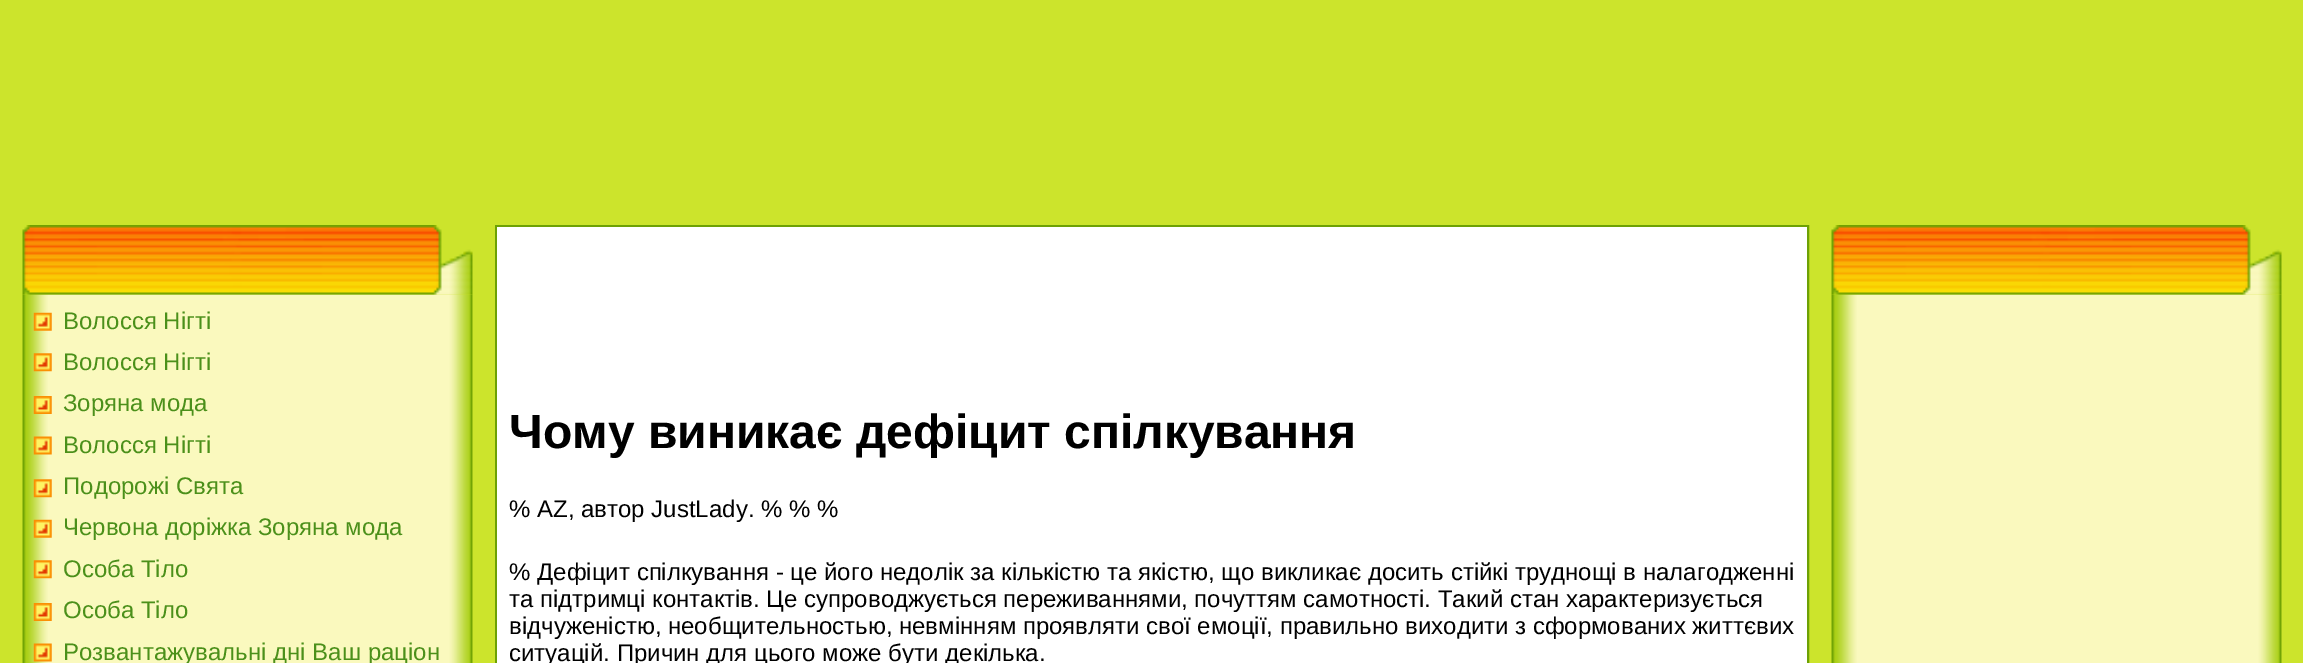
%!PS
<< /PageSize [2303 663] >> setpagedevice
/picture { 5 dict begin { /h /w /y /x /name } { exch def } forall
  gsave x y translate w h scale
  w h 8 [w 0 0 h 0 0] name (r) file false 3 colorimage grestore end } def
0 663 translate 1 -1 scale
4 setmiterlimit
0.8 0.894 0.173 setrgbcolor
0 0 2303 663 rectfill
(img1.rgb) 22 225 451 70 picture
(img2.rgb) 22 294 451 369 picture
(img3.rgb) 33 312 19 19 picture
/LiberationSans-Regular [24 0 0 -24 0 0] selectfont
0.294 0.565 0.102 setrgbcolor
63 329 moveto (Волосся Нігті) show
(img4.rgb) 33 353 19 19 picture
63 370 moveto (Волосся Нігті) show
(img5.rgb) 33 396 19 18 picture
63 411 moveto (Зоряна мода) show
(img6.rgb) 33 436 19 19 picture
63 453 moveto (Волосся Нігті) show
(img4.rgb) 33 479 19 19 picture
63 494 moveto (Подорожі Свята) show
(img3.rgb) 33 519 19 19 picture
63 535 moveto (Червона доріжка Зоряна мода) show
(img4.rgb) 33 560 19 19 picture
63 577 moveto (Особа Тіло) show
(img5.rgb) 33 603 19 18 picture
63 618 moveto (Особа Тіло) show
(img6.rgb) 33 643 19 19 picture
63 660 moveto (Розвантажувальні дні Ваш раціон) show
0.427 0.631 0.016 setrgbcolor
2 setlinewidth
496 226 1312 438 rectstroke
1 setgray
497 227 1310 436 rectfill
/LiberationSans-Bold [48 0 0 -48 0 0] selectfont
0 setgray
509 448 moveto (Чому виникає дефіцит спілкування) show
/LiberationSans-Regular [24 0 0 -24 0 0] selectfont
509 517 moveto (% AZ, автор JustLady. % % %) show
509 580 moveto (% Дефіцит спілкування - це його недолік за кількістю та якістю, що викликає досить стійкі труднощі в налагодженні) show
509 607 moveto -0.1 0 32 (та підтримці контактів. Це супроводжується переживаннями, почуттям самотності. Такий стан характеризується) widthshow
509 634 moveto -0.1 0 32 (відчуженістю, необщительностью, невмінням проявляти свої емоції, правильно виходити з сформованих життєвих) widthshow
509 661 moveto (ситуацій. Причин для цього може бути декілька.) show
(img1.rgb) 1831 225 451 70 picture
(img2.rgb) 1831 294 451 369 picture
showpage
